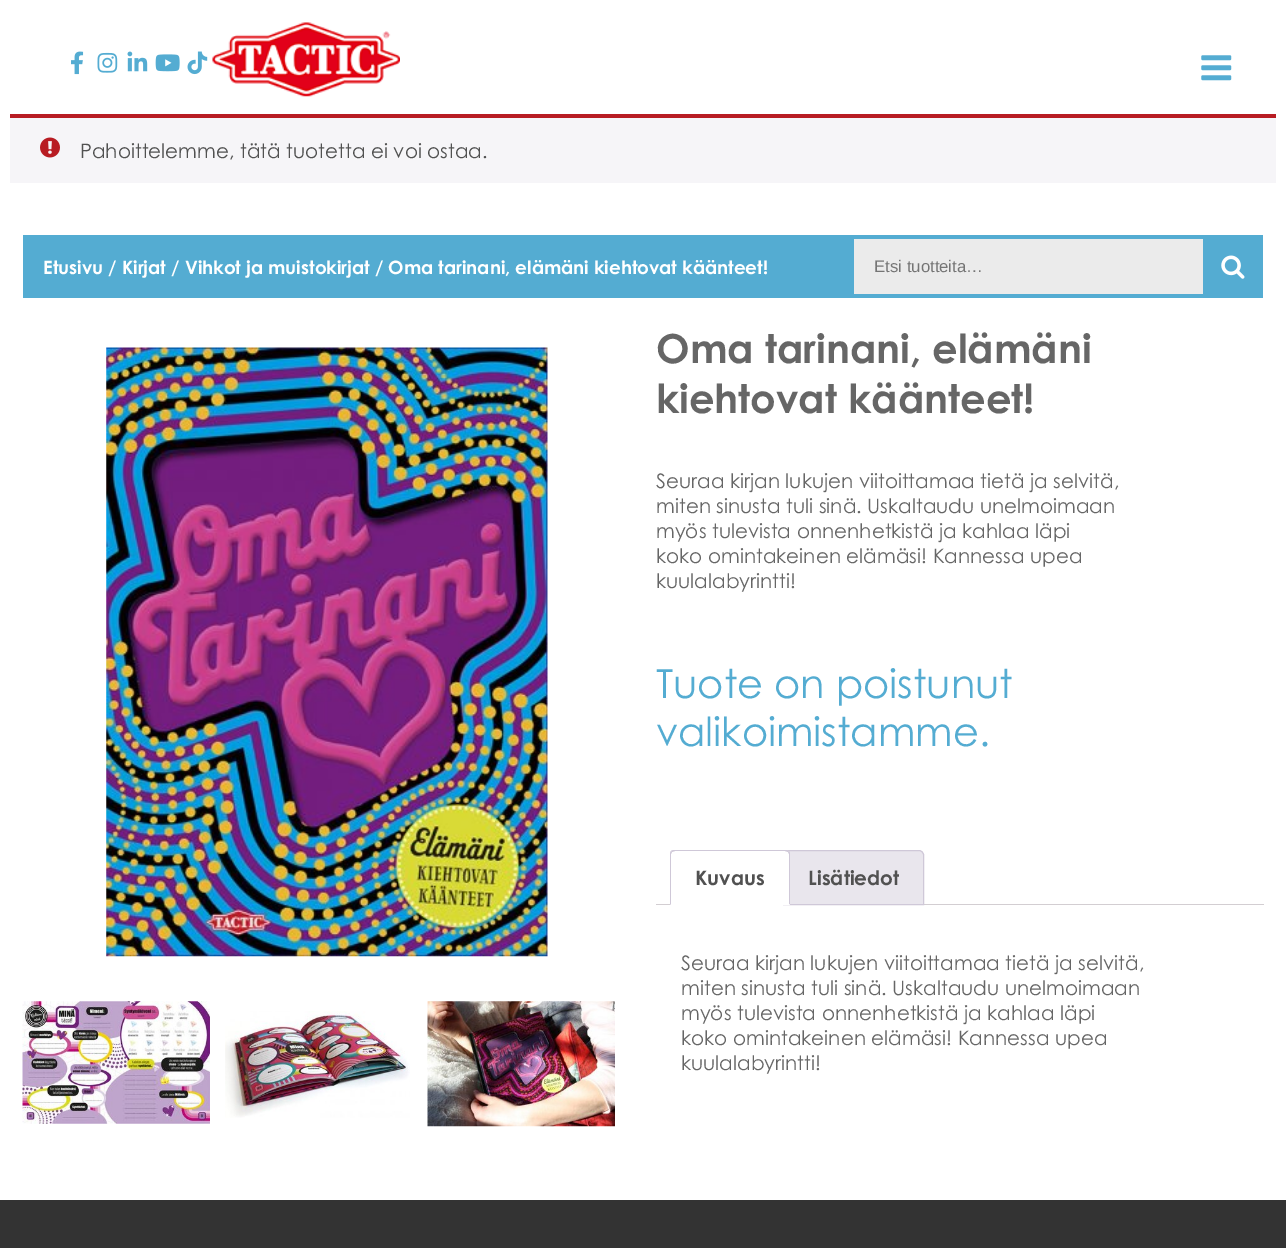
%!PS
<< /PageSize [1286 1248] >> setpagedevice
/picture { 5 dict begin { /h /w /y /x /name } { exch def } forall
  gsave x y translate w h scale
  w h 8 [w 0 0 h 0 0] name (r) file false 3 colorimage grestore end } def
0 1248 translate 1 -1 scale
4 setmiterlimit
1 setgray
0 0 1286 1248 rectfill
(img1.rgb) 71 51 13 24 picture
(img2.rgb) 97 52 21 21 picture
(img3.rgb) 127 51 21 21 picture
(img4.rgb) 155 54 25 18 picture
(img5.rgb) 187 51 21 24 picture
(img6.rgb) 212 22 188 75 picture
(img7.rgb) 1201 55 31 26 picture
0.965 0.961 0.973 setrgbcolor
10 118 1266 65 rectfill
0.722 0.11 0.137 setrgbcolor
10 114 1266 4 rectfill
(img8.rgb) 40 137 20 21 picture
/CenturyGothic-Regular [20 0 0 -20 0 0] selectfont
0.318 setgray
80 158 moveto (Pahoittelemme, tätä tuotetta ei voi ostaa.) show
0.329 0.675 0.824 setrgbcolor
23 235 827 63 rectfill
/CenturyGothic-Bold [18.4 0 0 -18.4 0 0] selectfont
1 setgray
43 274 moveto (Etusivu / Kirjat / Vihkot ja muistokirjat / Oma tarinani, elämäni kiehtovat käänteet!) show
0.922 setgray
854 239 349 55 rectfill
0.329 0.675 0.824 setrgbcolor
850 235 353 4 rectfill
850 294 353 4 rectfill
850 235 4 63 rectfill
/LiberationSans-Regular [16.75 0 0 -16.75 0 0] selectfont
0.459 setgray
874 272 moveto (Etsi tuotteita…) show
0.329 0.675 0.824 setrgbcolor
1203 235 60 63 rectfill
(img9.rgb) 1221 255 24 24 picture
(img10.rgb) 106 347 442 610 picture
(img11.rgb) 22 1001 188 123 picture
(img12.rgb) 225 1011 185 107 picture
(img13.rgb) 427 1001 188 126 picture
/CenturyGothic-Bold [40 0 0 -40 0 0] selectfont
0.4 setgray
656 363 moveto (Oma tarinani, elämäni) show
656 413 moveto (kiehtovat käänteet!) show
/CenturyGothic-Regular [20 0 0 -20 0 0] selectfont
656 488 moveto (Seuraa kirjan lukujen viitoittamaa tietä ja selvitä,) show
656 513 moveto (miten sinusta tuli sinä. Uskaltaudu unelmoimaan) show
656 538 moveto (myös tulevista onnenhetkistä ja kahlaa läpi) show
656 563 moveto (koko omintakeinen elämäsi! Kannessa upea) show
656 588 moveto (kuulalabyrintti!) show
/CenturyGothic-Regular [40 0 0 -40 0 0] selectfont
0.329 0.675 0.824 setrgbcolor
656 698 moveto (Tuote on poistunut) show
656 746 moveto (valikoimistamme.) show
0.827 0.808 0.824 setrgbcolor
656 904 608 1 rectfill
0.914 0.902 0.929 setrgbcolor
newpath 788 850.5 moveto 919 850.5 lineto 921.5 850.5 923.5 852.5 923.5 855 curveto 923.5 904.5 lineto 783.5 904.5 lineto 783.5 855 lineto 783.5 852.5 785.5 850.5 788 850.5 curveto closepath gsave fill grestore
0.812 0.784 0.847 setrgbcolor
stroke
1 setgray
newpath 675 850 moveto 785 850 lineto 788 850 790 852 790 855 curveto 790 905 lineto 670 905 lineto 670 855 lineto 670 852 672 850 675 850 curveto closepath fill
0.812 0.784 0.847 setrgbcolor
newpath 675 850 moveto 674 850 672 850 671 851 curveto 672 852 lineto 675 851 lineto 785 851 lineto 788 852 lineto 789 851 lineto 788 850 786 850 785 850 curveto closepath fill
newpath 790 905 moveto 790 855 lineto 790 854 790 852 789 851 curveto 788 852 lineto 789 854 lineto 789 904 lineto closepath fill
1 setgray
newpath 790 905 moveto 789 904 lineto 671 904 lineto 670 905 lineto closepath fill
0.812 0.784 0.847 setrgbcolor
newpath 670 905 moveto 671 904 lineto 671 854 lineto 672 852 lineto 671 851 lineto 670 852 670 854 670 855 curveto closepath fill
/CenturyGothic-Bold [20 0 0 -20 0 0] selectfont
0.318 setgray
695 885 moveto (Kuvaus) show
808 885 moveto (Lisätiedot) show
/CenturyGothic-Regular [20 0 0 -20 0 0] selectfont
0.4 setgray
681 970 moveto (Seuraa kirjan lukujen viitoittamaa tietä ja selvitä,) show
681 995 moveto (miten sinusta tuli sinä. Uskaltaudu unelmoimaan) show
681 1020 moveto (myös tulevista onnenhetkistä ja kahlaa läpi) show
681 1045 moveto (koko omintakeinen elämäsi! Kannessa upea) show
681 1070 moveto (kuulalabyrintti!) show
0.2 setgray
0 1200 1286 48 rectfill
showpage
